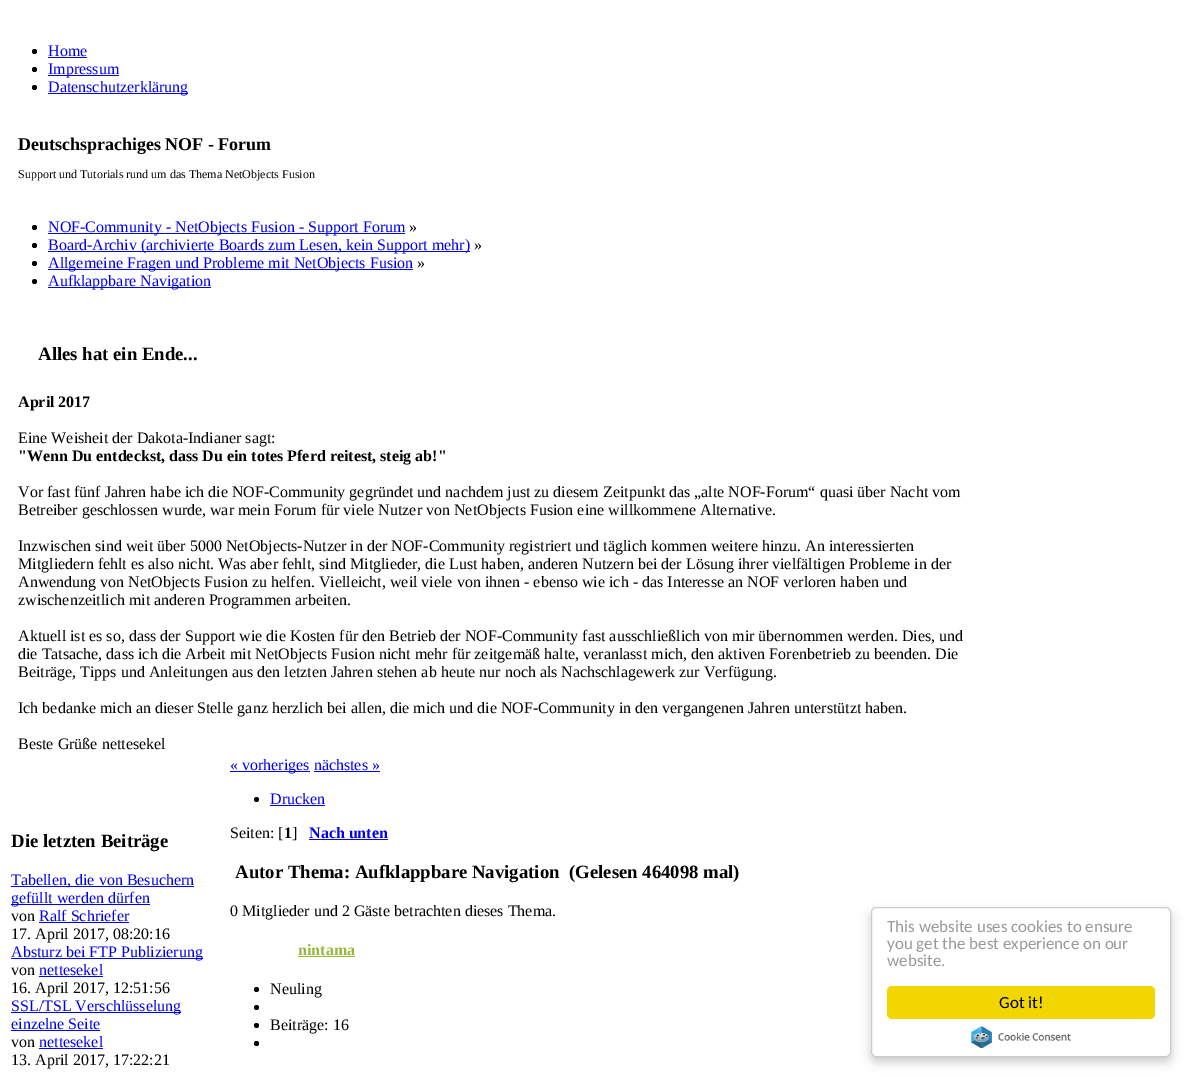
%!PS
<< /PageSize [1191 1077] /PageUsesTransparency true >> setpagedevice
/alpha { dup .setfillconstantalpha .setstrokeconstantalpha } def
/roundrect { 5 dict begin { /r /h /w /y /x } { exch def } forall
  x r add y moveto x w add y 2 copy h add r arct x w add y h add x 1 index r arct
  x y h add x y r arct x y 2 copy exch w add exch r arct closepath end } def
/shadow { 12 dict begin { /a /b /q /h /w /y /x } { exch def } forall gsave /was 0 def
  9 -2 -9 { dup b mul 4 div /e exch def 1 sub .425 mul 2.718 exch exp 1 add a .99 .min exch div /now exch def
    1 1 now sub 1 was sub div sub alpha /was now def
    w h .min e 2 mul add 0 gt { x e sub y e sub w e 2 mul add h e 2 mul add
      q e add b .6 mul add w h .min 2 div e add .min 0 .max roundrect fill } if } for grestore end } def
/picture { 5 dict begin { /h /w /y /x /name } { exch def } forall
  gsave x y translate w h scale
  w h 8 [w 0 0 h 0 0] name (r) file false 3 colorimage grestore end } def
0 .pushpdf14devicefilter
0 1077 translate 1 -1 scale
4 setmiterlimit
1 setgray
0 0 1191 1077 rectfill
0 setgray
newpath 34.5 51.5 2.5 0 360 arc closepath fill
/LiberationSerif-Regular [16 0 0 -16 0 0] selectfont
0 0 0.933 setrgbcolor
48 56 moveto (Home) show
48 57 39 1 rectfill
0 setgray
newpath 34.5 69.5 2.5 0 360 arc closepath fill
0 0 0.933 setrgbcolor
48 75 71 1 rectfill
48 74 moveto (Impressum) show
0 setgray
newpath 34.5 87.5 2.5 0 360 arc closepath fill
0 0 0.933 setrgbcolor
48 93 140 1 rectfill
48 92 moveto (Datenschutzerklärung) show
/LiberationSerif-Bold [18 0 0 -18 0 0] selectfont
0 setgray
18 150 moveto (Deutschsprachiges NOF - Forum) show
/LiberationSerif-Regular [12 0 0 -12 0 0] selectfont
18 178 moveto (Support und Tutorials rund um das Thema NetObjects Fusion) show
newpath 34.5 227.5 2.5 0 360 arc closepath fill
0 0 0.933 setrgbcolor
48 233 357 1 rectfill
/LiberationSerif-Regular [16 0 0 -16 0 0] selectfont
48 232 moveto (NOF-Community - NetObjects Fusion - Support Forum) show
0 setgray
409 232 moveto (») show
newpath 34.5 245.5 2.5 0 360 arc closepath fill
0 0 0.933 setrgbcolor
48 251 422 1 rectfill
48 250 moveto (Board-Archiv \(archivierte Boards zum Lesen, kein Support mehr\)) show
0 setgray
474 250 moveto (») show
newpath 34.5 263.5 2.5 0 360 arc closepath fill
0 0 0.933 setrgbcolor
48 269 365 1 rectfill
48 268 moveto (Allgemeine Fragen und Probleme mit NetObjects Fusion) show
0 setgray
417 268 moveto (») show
newpath 34.5 281.5 2.5 0 360 arc closepath fill
0 0 0.933 setrgbcolor
48 287 163 1 rectfill
48 286 moveto (Aufklappbare Navigation) show
/LiberationSerif-Bold [18.75 0 0 -18.75 0 0] selectfont
0 setgray
38 360 moveto (Alles hat ein Ende...) show
/LiberationSerif-Bold [16 0 0 -16 0 0] selectfont
18 407 moveto (April 2017) show
/LiberationSerif-Regular [16 0 0 -16 0 0] selectfont
18 443 moveto (Eine Weisheit der Dakota-Indianer sagt:) show
/LiberationSerif-Bold [16 0 0 -16 0 0] selectfont
18 461 moveto ("Wenn Du entdeckst, dass Du ein totes Pferd reitest, steig ab!") show
/LiberationSerif-Regular [16 0 0 -16 0 0] selectfont
18 497 moveto (Vor fast fünf Jahren habe ich die NOF-Community gegründet und nachdem just zu diesem Zeitpunkt das „alte NOF-Forum“ quasi über Nacht vom) show
18 515 moveto (Betreiber geschlossen wurde, war mein Forum für viele Nutzer von NetObjects Fusion eine willkommene Alternative.) show
18 551 moveto (Inzwischen sind weit über 5000 NetObjects-Nutzer in der NOF-Community registriert und täglich kommen weitere hinzu. An interessierten) show
18 569 moveto (Mitgliedern fehlt es also nicht. Was aber fehlt, sind Mitglieder, die Lust haben, anderen Nutzern bei der Lösung ihrer vielfältigen Probleme in der) show
18 587 moveto (Anwendung von NetObjects Fusion zu helfen. Vielleicht, weil viele von ihnen - ebenso wie ich - das Interesse an NOF verloren haben und) show
18 605 moveto (zwischenzeitlich mit anderen Programmen arbeiten.) show
18 641 moveto (Aktuell ist es so, dass der Support wie die Kosten für den Betrieb der NOF-Community fast ausschließlich von mir übernommen werden. Dies, und) show
18 659 moveto (die Tatsache, dass ich die Arbeit mit NetObjects Fusion nicht mehr für zeitgemäß halte, veranlasst mich, den aktiven Forenbetrieb zu beenden. Die) show
18 677 moveto (Beiträge, Tipps und Anleitungen aus den letzten Jahren stehen ab heute nur noch als Nachschlagewerk zur Verfügung.) show
18 713 moveto (Ich bedanke mich an dieser Stelle ganz herzlich bei allen, die mich und die NOF-Community in den vergangenen Jahren unterstützt haben.) show
18 749 moveto (Beste Grüße nettesekel) show
/LiberationSerif-Bold [18.75 0 0 -18.75 0 0] selectfont
11 847 moveto (Die letzten Beiträge) show
0 0 0.933 setrgbcolor
11 886 183 1 rectfill
/LiberationSerif-Regular [16 0 0 -16 0 0] selectfont
11 885 moveto (Tabellen, die von Besuchern) show
11 904 139 1 rectfill
11 903 moveto (gefüllt werden dürfen) show
0 setgray
11 921 moveto (von) show
0 0 0.933 setrgbcolor
39 922 90 1 rectfill
39 921 moveto (Ralf Schriefer) show
0 setgray
11 939 moveto (17. April 2017, 08:20:16) show
0 0 0.933 setrgbcolor
11 958 192 1 rectfill
11 957 moveto (Absturz bei FTP Publizierung) show
0 setgray
11 975 moveto (von) show
0 0 0.933 setrgbcolor
39 976 64 1 rectfill
39 975 moveto (nettesekel) show
0 setgray
11 993 moveto (16. April 2017, 12:51:56) show
0 0 0.933 setrgbcolor
11 1012 170 1 rectfill
11 1011 moveto (SSL/TSL Verschlüsselung) show
11 1029 moveto (einzelne Seite) show
11 1030 89 1 rectfill
0 setgray
11 1047 moveto (von) show
0 0 0.933 setrgbcolor
39 1048 64 1 rectfill
39 1047 moveto (nettesekel) show
0 setgray
11 1065 moveto (13. April 2017, 17:22:21) show
0 0 0.933 setrgbcolor
230 771 80 1 rectfill
230 770 moveto (« vorheriges nächstes ») show
314 771 66 1 rectfill
0 setgray
newpath 256.5 799.5 2.5 0 360 arc closepath fill
0 0 0.933 setrgbcolor
270 804 moveto (Drucken) show
270 805 55 1 rectfill
0 setgray
230 838 moveto (Seiten: [) show
/LiberationSerif-Bold [16 0 0 -16 0 0] selectfont
284 838 moveto (1) show
/LiberationSerif-Regular [16 0 0 -16 0 0] selectfont
292 838 moveto (]) show
/LiberationSerif-Bold [16 0 0 -16 0 0] selectfont
0 0 0.933 setrgbcolor
309 838 moveto (Nach unten) show
309 839 79 1 rectfill
/LiberationSerif-Bold [18.75 0 0 -18.75 0 0] selectfont
0 setgray
235 878 moveto (Autor Thema: Aufklappbare Navigation  \(Gelesen 464098 mal\)) show
/LiberationSerif-Regular [16 0 0 -16 0 0] selectfont
230 916 moveto (0 Mitglieder und 2 Gäste betrachten dieses Thema.) show
/LiberationSerif-Bold [16 0 0 -16 0 0] selectfont
0.588 0.718 0.227 setrgbcolor
298 955 moveto (nintama) show
298 956 57 1 rectfill
0 setgray
newpath 256.5 989.5 2.5 0 360 arc closepath fill
/LiberationSerif-Regular [16 0 0 -16 0 0] selectfont
270 994 moveto (Neuling) show
newpath 256.5 1007.5 2.5 0 360 arc closepath fill
newpath 256.5 1025.5 2.5 0 360 arc closepath fill
270 1030 moveto (Beiträge: 16) show
newpath 256.5 1043.5 2.5 0 360 arc closepath fill
871 912 300 150 5 5 0.2 shadow
1 setgray
871.5 907.5 299 149 4.5 roundrect gsave fill grestore
0.8 setgray
stroke
/Carlito-Regular [17 0 0 -17 0 0] selectfont
0.6 setgray
887 932 moveto (This website uses cookies to ensure) show
887 949 moveto (you get the best experience on our) show
887 966 moveto (website.) show
0.945 0.839 0 setrgbcolor
887 986 268 33 5 roundrect fill
0 setgray
999 1008 moveto (Got it!) show
(img1.rgb) 971 1026 100 22 picture
.poppdf14devicefilter showpage
